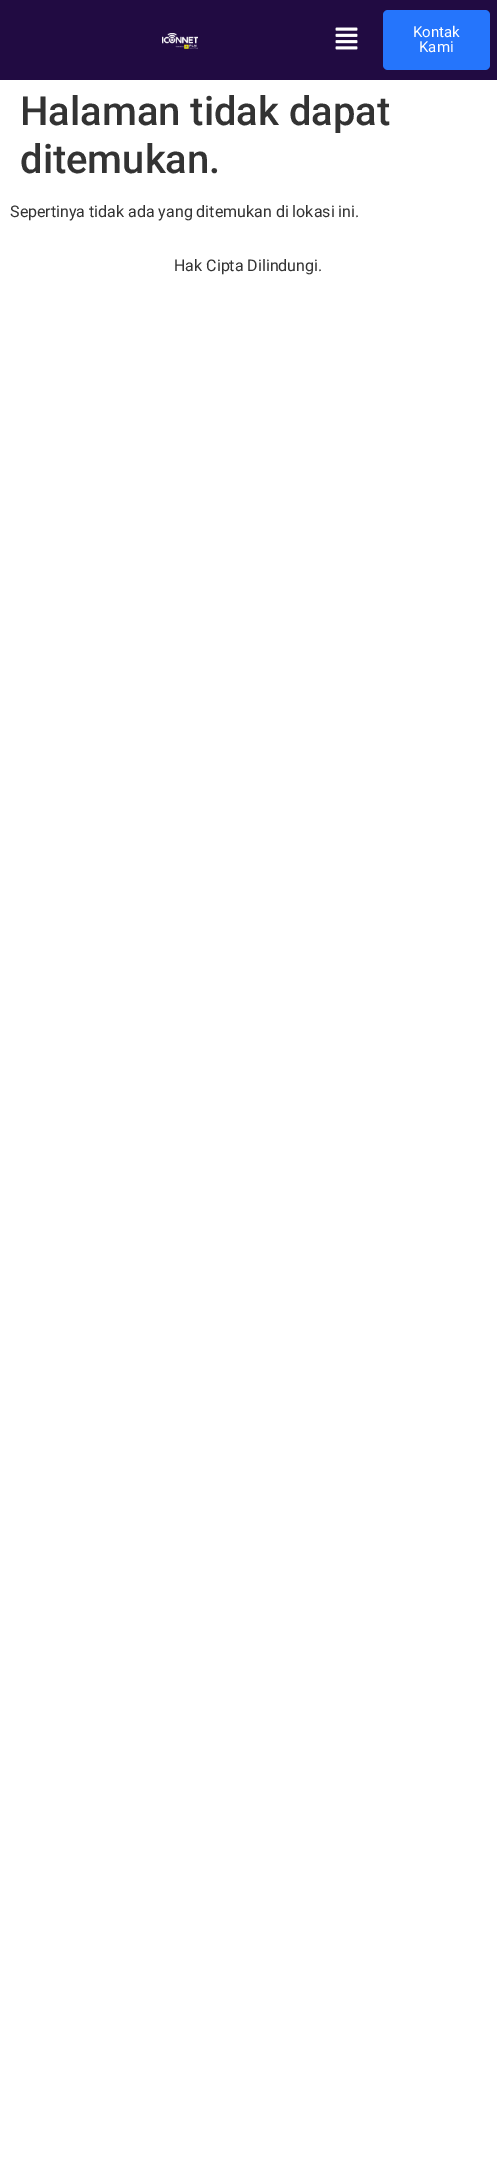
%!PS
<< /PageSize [497 2174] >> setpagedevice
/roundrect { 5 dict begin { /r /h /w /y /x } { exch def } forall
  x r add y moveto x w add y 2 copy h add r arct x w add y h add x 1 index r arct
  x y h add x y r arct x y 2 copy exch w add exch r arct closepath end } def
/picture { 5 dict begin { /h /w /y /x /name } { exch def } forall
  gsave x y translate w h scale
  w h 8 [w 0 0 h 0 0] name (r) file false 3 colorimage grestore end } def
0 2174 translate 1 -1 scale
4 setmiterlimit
1 setgray
0 0 497 2174 rectfill
0.129 0.043 0.259 setrgbcolor
0 0 497 80 rectfill
(img1.rgb) 162 33 36 16 picture
(img2.rgb) 335 27 23 23 picture
0.145 0.459 0.988 setrgbcolor
383 10 107 60 5 roundrect fill
/Roboto-Regular [15 0 0 -15 0 0] selectfont
1 setgray
413 37 moveto (Kontak) show
419 52 moveto (Kami) show
/Roboto-Medium [40 0 0 -40 0 0] selectfont
0.2 setgray
20 125 moveto (Halaman tidak dapat) show
20 173 moveto (ditemukan.) show
/Roboto-Regular [16 0 0 -16 0 0] selectfont
10 217 moveto (Sepertinya tidak ada yang ditemukan di lokasi ini.) show
174 271 moveto (Hak Cipta Dilindungi.) show
showpage
